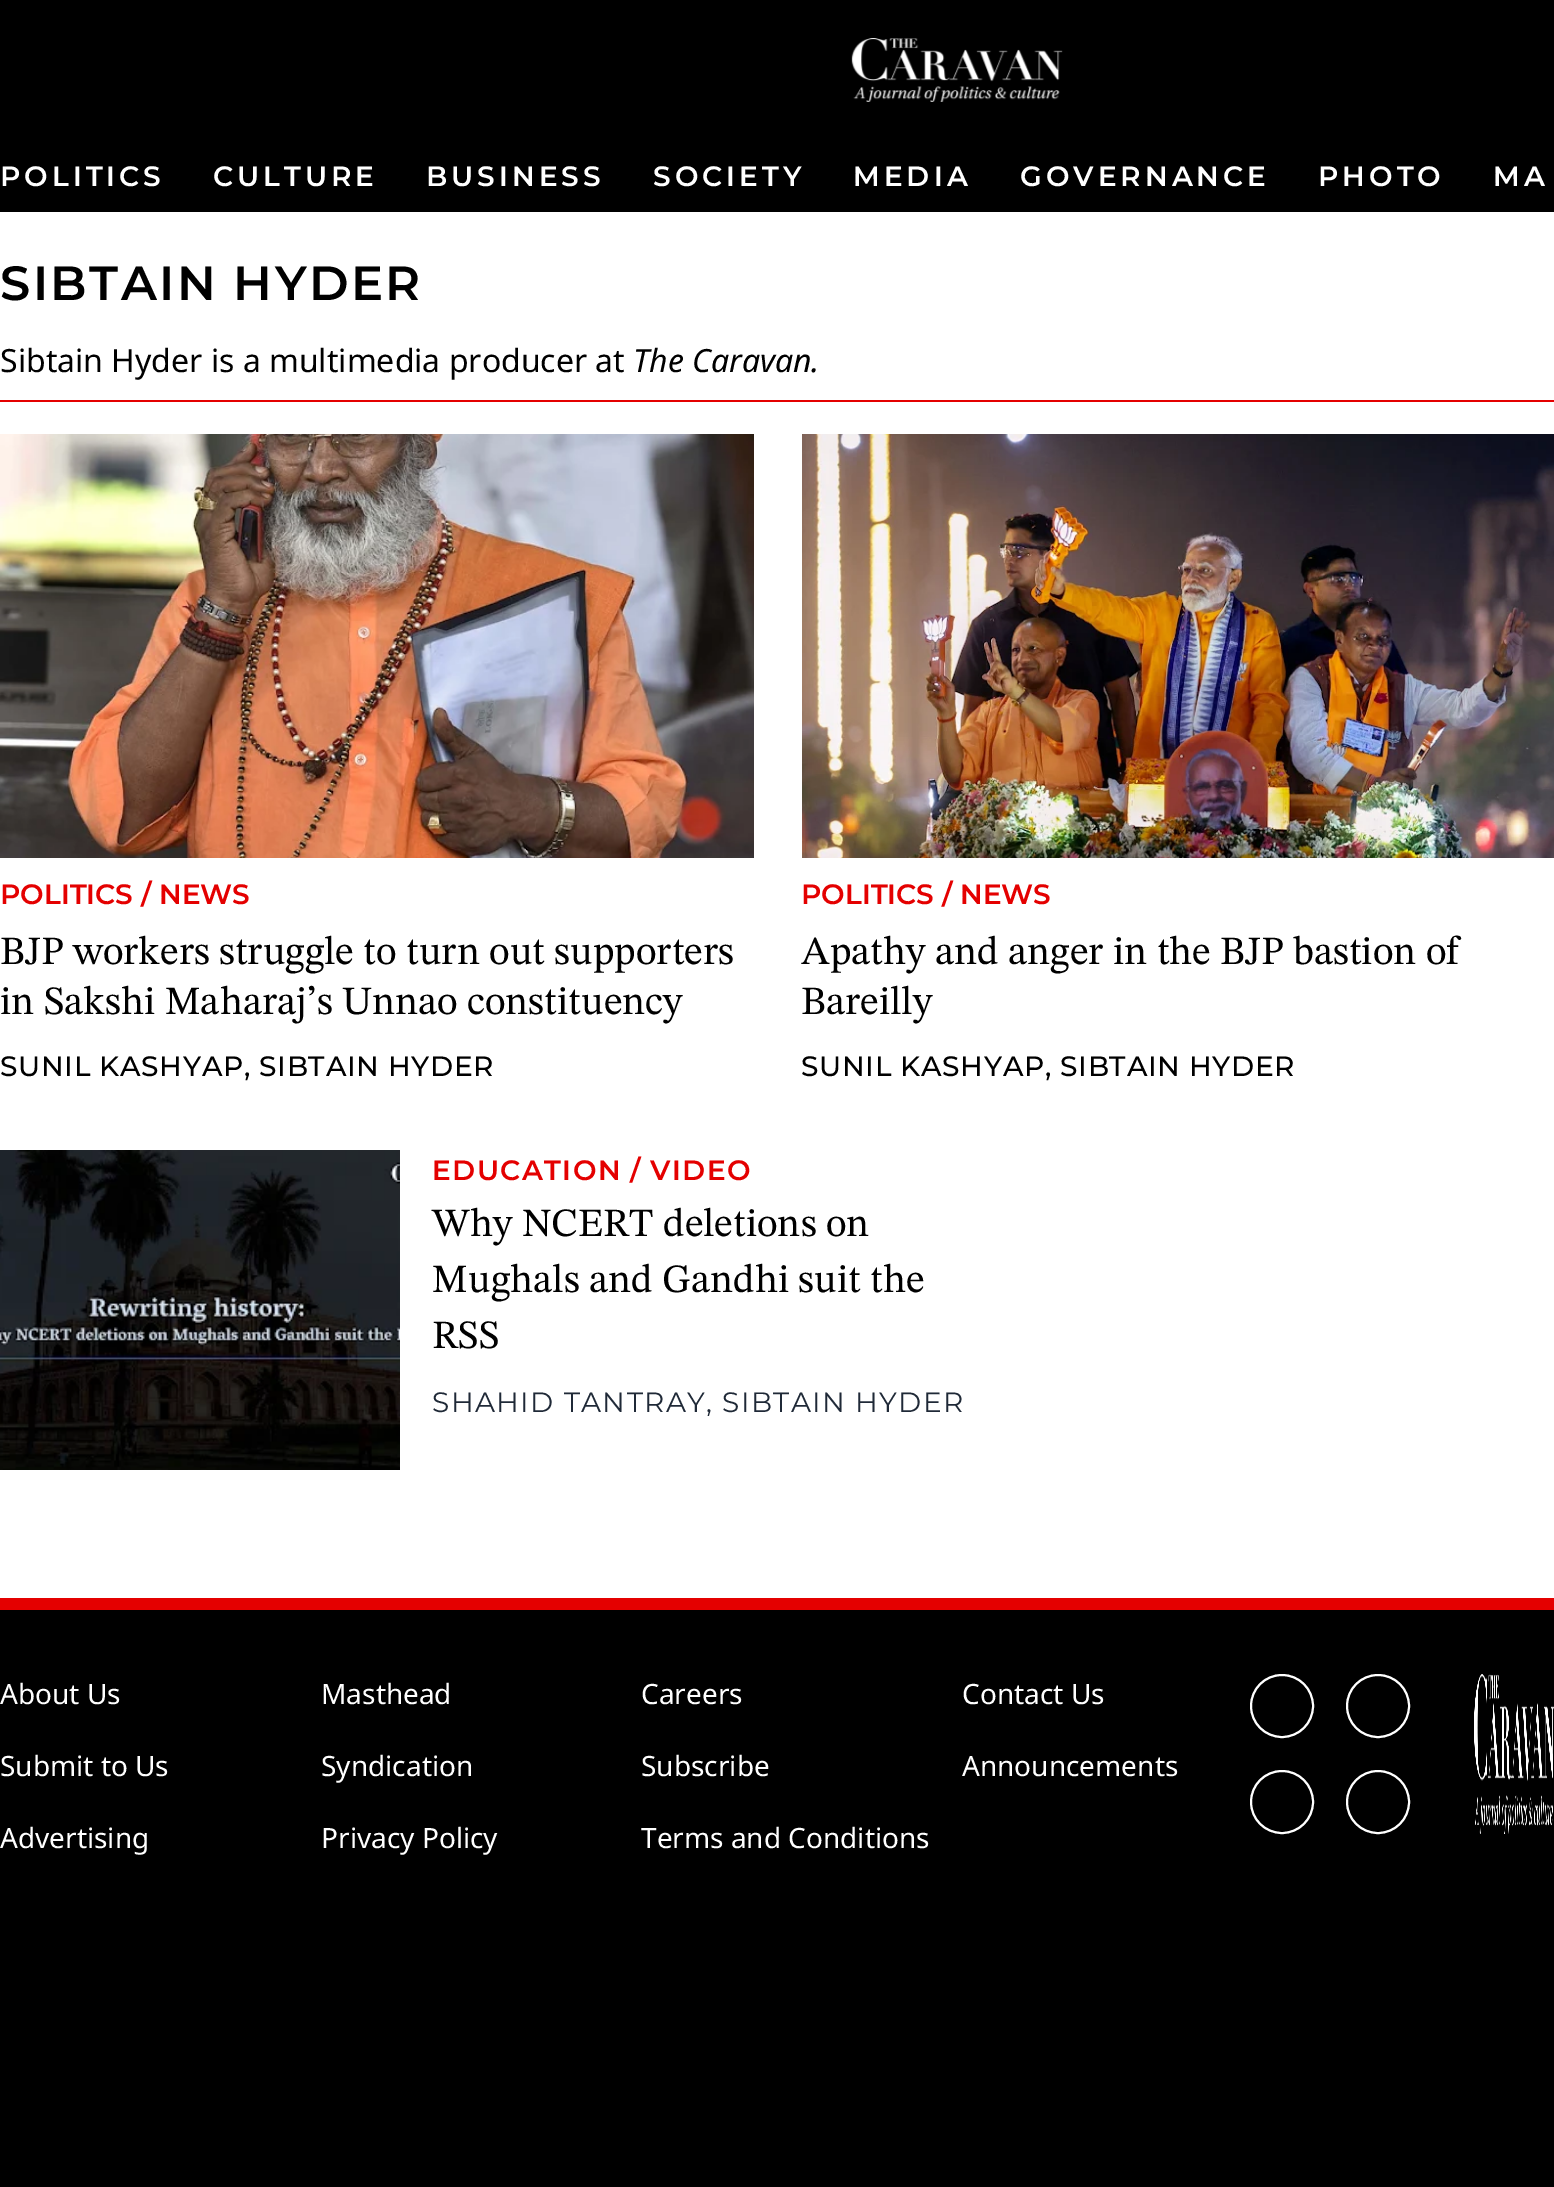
%!PS
<< /PageSize [1554 2187] >> setpagedevice
/picture { 5 dict begin { /h /w /y /x /name } { exch def } forall
  gsave x y translate w h scale
  w h 8 [w 0 0 h 0 0] name (r) file false 3 colorimage grestore end } def
0 2187 translate 1 -1 scale
4 setmiterlimit
1 setgray
0 0 1554 2187 rectfill
0 setgray
0 0 1554 212 rectfill
(img1.rgb) 851 38 212 64 picture
/Montserrat-SemiBold [28 0 0 -28 0 0] selectfont
1 setgray
0 186 moveto 4 0 (POLITICS) ashow
213 186 moveto 4 0 (CULTURE) ashow
426 186 moveto 4 0 (BUSINESS) ashow
653 186 moveto 4 0 (SOCIETY) ashow
853 186 moveto 4 0 (MEDIA) ashow
1020 186 moveto 4 0 (GOVERNANCE) ashow
1318 186 moveto 4 0 (PHOTO) ashow
1493 186 moveto 4 0 (MA) ashow
0.894 0 0 setrgbcolor
0 400 1554 2 rectfill
/Montserrat-SemiBold [48 0 0 -48 0 0] selectfont
0 setgray
0 300 moveto 2.4 0 (SIBTAIN HYDER) ashow
/NotoSans-Regular [32 0 0 -32 0 0] selectfont
0 372 moveto (Sibtain Hyder is a multimedia producer at) show
/NotoSans-Italic [32 0 0 -32 0 0] selectfont
633 372 moveto (The Caravan.) show
(img2.rgb) 0 434 754 424 picture
/Montserrat-SemiBold [28 0 0 -28 0 0] selectfont
0.894 0 0 setrgbcolor
0 904 moveto (POLITICS / NEWS) show
/STIXTwoText-Regular [40 0 0 -40 0 0] selectfont
0 setgray
0 964 moveto (BJP workers struggle to turn out supporters) show
0 1014 moveto (in Sakshi Maharaj’s Unnao constituency) show
/Montserrat-Medium [28 0 0 -28 0 0] selectfont
0 1076 moveto 0.7 0 (SUNIL KASHYAP, SIBTAIN HYDER) ashow
(img3.rgb) 802 434 752 424 picture
/Montserrat-SemiBold [28 0 0 -28 0 0] selectfont
0.894 0 0 setrgbcolor
801 904 moveto (POLITICS / NEWS) show
/STIXTwoText-Regular [40 0 0 -40 0 0] selectfont
0 setgray
801 964 moveto (Apathy and anger in the BJP bastion of) show
801 1014 moveto (Bareilly) show
/Montserrat-Medium [28 0 0 -28 0 0] selectfont
801 1076 moveto 0.7 0 (SUNIL KASHYAP, SIBTAIN HYDER) ashow
(img4.rgb) 0 1150 400 320 picture
/Montserrat-SemiBold [28 0 0 -28 0 0] selectfont
0.894 0 0 setrgbcolor
432 1180 moveto 1.4 0 (EDUCATION) ashow
630 1180 moveto 1.4 0 (/) ashow
650 1180 moveto 1.4 0 (VIDEO) ashow
/STIXTwoText-Regular [40 0 0 -40 0 0] selectfont
0 setgray
432 1236 moveto (Why NCERT deletions on) show
432 1292 moveto (Mughals and Gandhi suit the) show
432 1348 moveto (RSS) show
/Montserrat-Regular [28 0 0 -28 0 0] selectfont
0.122 0.161 0.216 setrgbcolor
432 1412 moveto 1.4 0 (SHAHID TANTRAY, SIBTAIN HYDER) ashow
0 setgray
0 1610 1554 577 rectfill
0.894 0 0 setrgbcolor
0 1598 1554 12 rectfill
/NotoSans-Regular [28 0 0 -28 0 0] selectfont
1 setgray
0 1704 moveto (About Us) show
321 1704 moveto (Masthead) show
641 1704 moveto (Careers) show
962 1704 moveto (Contact Us) show
0 1776 moveto (Submit to Us) show
321 1776 moveto (Syndication) show
641 1776 moveto (Subscribe) show
962 1776 moveto (Announcements) show
0 1848 moveto (Advertising) show
321 1848 moveto (Privacy Policy) show
641 1848 moveto (Terms and Conditions) show
2 setlinewidth
newpath 1282 1706 31 0 360 arc closepath stroke
newpath 1378 1706 31 0 360 arc closepath stroke
newpath 1282 1802 31 0 360 arc closepath stroke
newpath 1378 1802 31 0 360 arc closepath stroke
(img5.rgb) 1474 1674 80 160 picture
showpage
